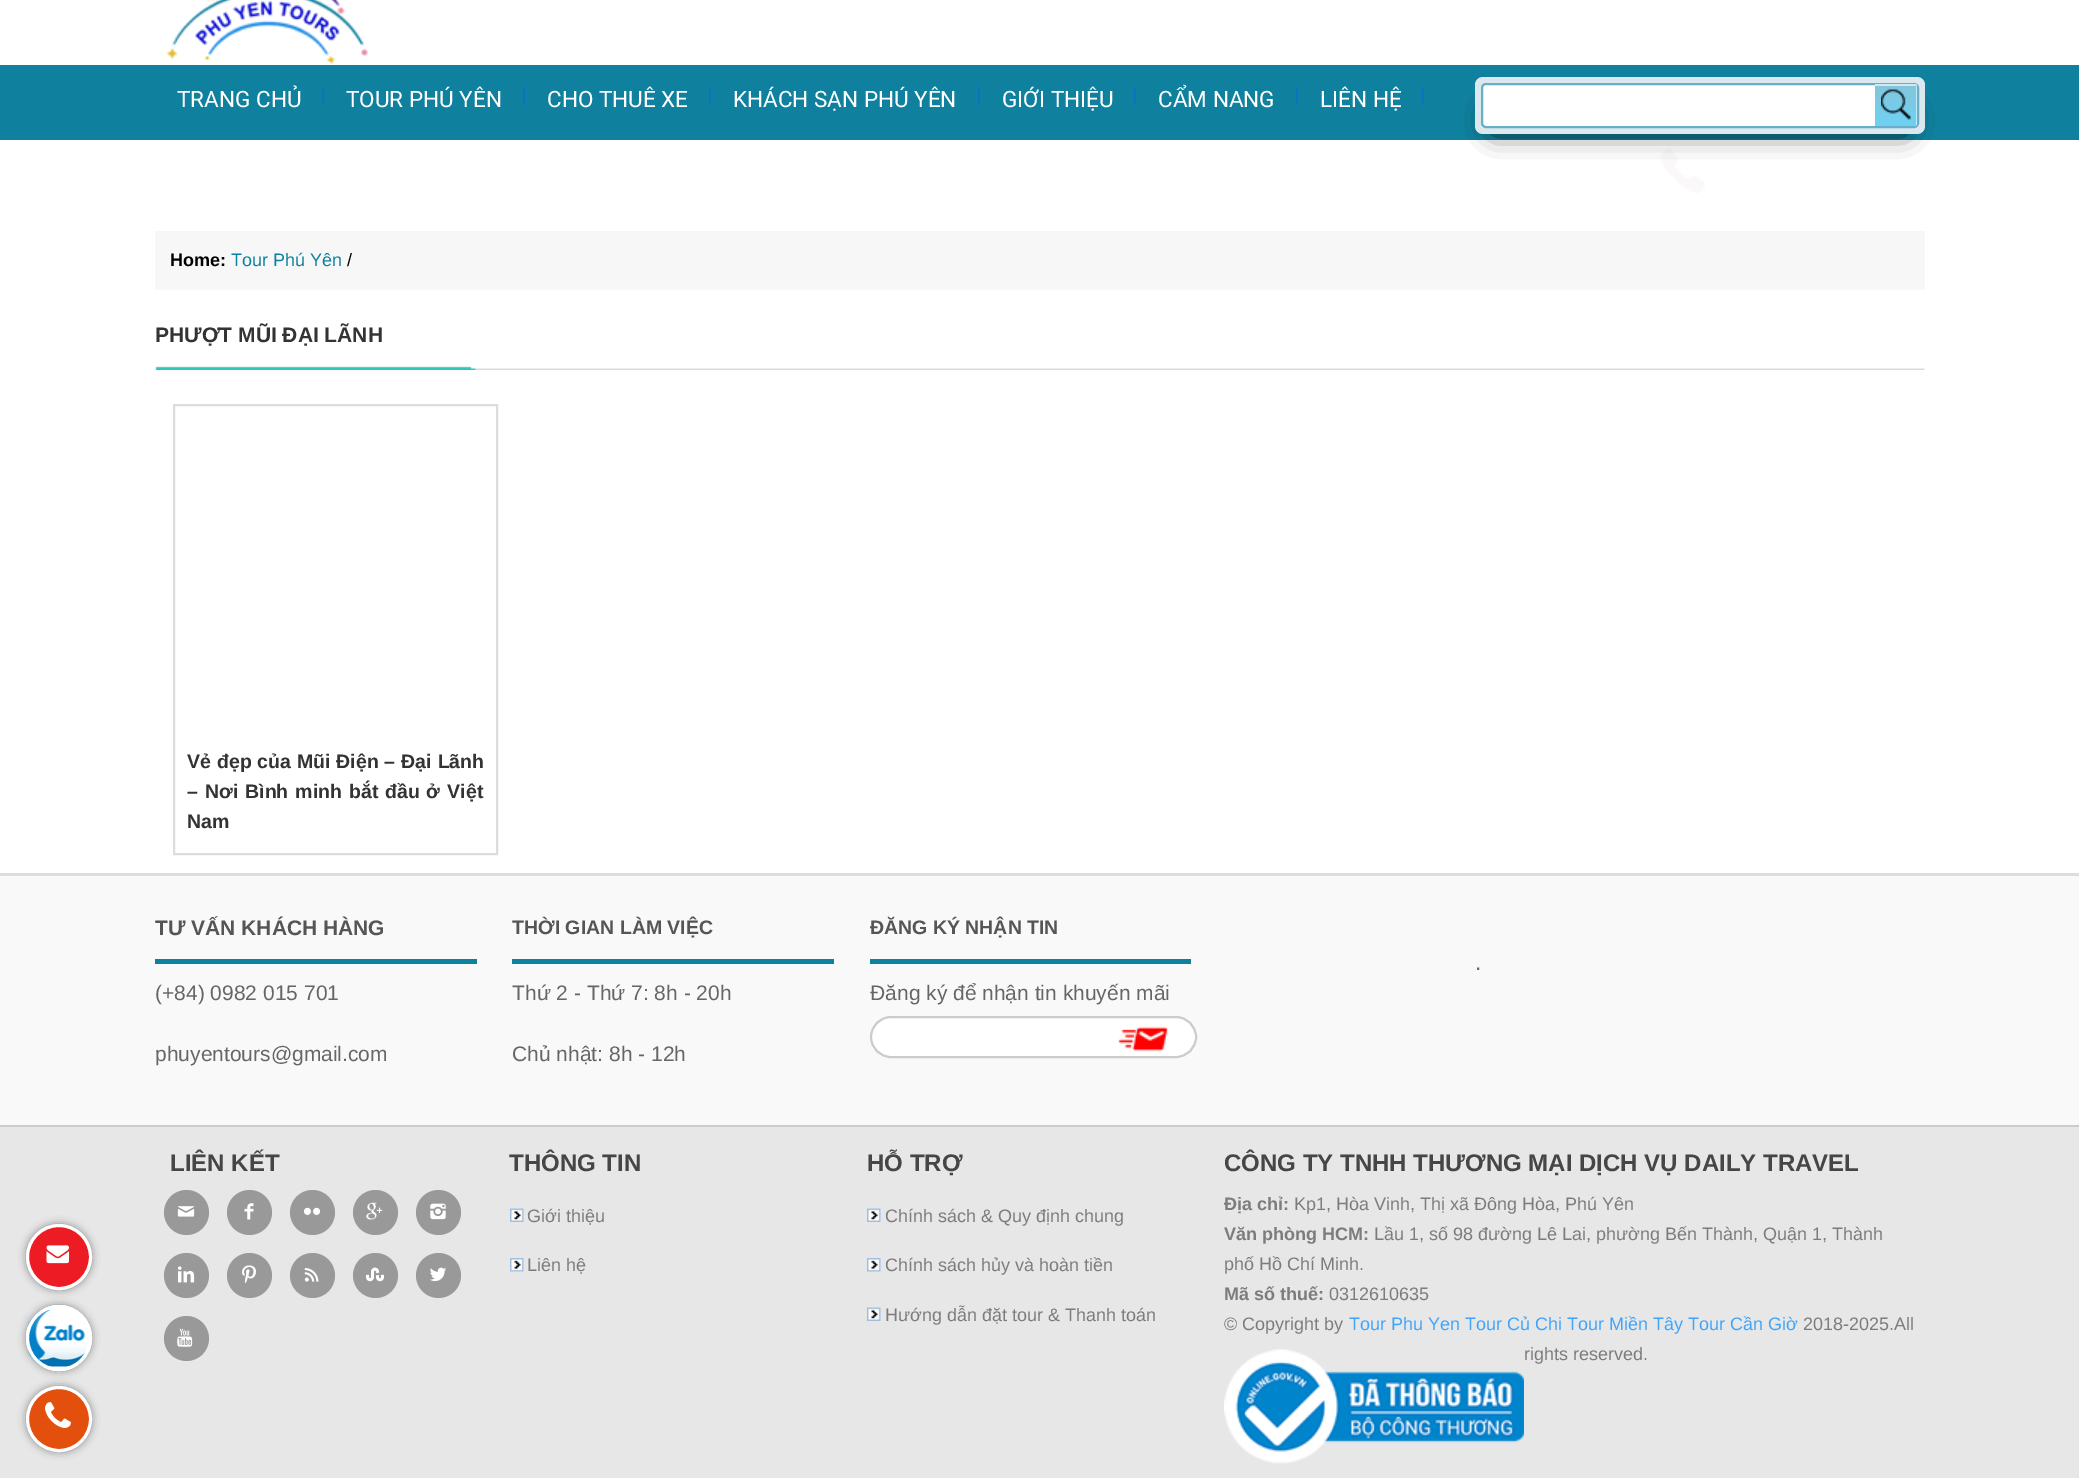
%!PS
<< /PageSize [2079 1478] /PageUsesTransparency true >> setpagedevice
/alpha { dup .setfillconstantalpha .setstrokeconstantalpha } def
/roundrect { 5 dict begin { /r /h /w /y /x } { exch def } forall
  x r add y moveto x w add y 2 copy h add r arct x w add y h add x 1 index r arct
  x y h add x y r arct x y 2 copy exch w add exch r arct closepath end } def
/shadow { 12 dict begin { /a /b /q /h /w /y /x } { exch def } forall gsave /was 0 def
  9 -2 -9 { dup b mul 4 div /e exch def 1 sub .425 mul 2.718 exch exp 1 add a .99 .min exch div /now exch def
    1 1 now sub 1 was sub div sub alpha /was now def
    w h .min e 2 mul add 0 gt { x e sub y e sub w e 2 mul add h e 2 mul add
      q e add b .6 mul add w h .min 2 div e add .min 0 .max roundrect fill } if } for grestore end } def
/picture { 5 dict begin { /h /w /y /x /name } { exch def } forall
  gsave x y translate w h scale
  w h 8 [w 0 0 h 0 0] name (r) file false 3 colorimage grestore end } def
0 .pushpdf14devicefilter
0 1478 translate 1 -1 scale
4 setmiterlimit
1 setgray
0 0 2079 1478 rectfill
(img1.rgb) 166 0 202 64 picture
0.059 0.506 0.62 setrgbcolor
0 65 2079 75 rectfill
(img2.rgb) 322 88 2 17 picture
/Roboto-Regular [22.5 0 0 -22.5 0 0] selectfont
1 setgray
177 107 moveto (TRANG CHỦ) show
(img2.rgb) 523 88 2 17 picture
346 107 moveto (TOUR PHÚ YÊN) show
(img2.rgb) 709 88 2 17 picture
547 107 moveto (CHO THUÊ XE) show
(img3.rgb) 978 88 2 17 picture
733 107 moveto (KHÁCH SẠN PHÚ YÊN) show
(img3.rgb) 1134 88 2 17 picture
1002 107 moveto (GIỚI THIỆU) show
(img3.rgb) 1296 88 2 17 picture
1158 107 moveto (CẨM NANG) show
(img3.rgb) 1422 88 2 17 picture
1320 107 moveto (LIÊN HỆ) show
(img5.rgb) 1660 148 45 45 picture
0 setgray
1494 111 411 18 0 13.5 1 shadow
0.859 0.914 0.933 setrgbcolor
1475 77 450 57 8 roundrect fill
1 setgray
1482 84 436 43 4 roundrect gsave fill grestore
0.408 0.682 0.78 setrgbcolor
2 setlinewidth
stroke
gsave newpath 1875 84 moveto 1914 84 lineto 1915.5 84 1917 85.5 1917 87 curveto 1917 123 lineto 1917 124.5 1915.5 126 1914 126 curveto 1875 126 lineto closepath clip newpath
<< /ShadingType 2 /ColorSpace /DeviceRGB /Coords [1896 84 1896 126] /Extend [true true] /Function << /FunctionType 2 /Domain [0 1] /C0 [0.518 0.773 0.863] /C1 [0.424 0.82 0.961] /N 1 >> >> shfill grestore
gsave
1875 84 42 42 rectclip
0.61 alpha
1 setgray
newpath 1874 86 moveto 1874 126 lineto 1726 126 lineto 1726 84 lineto 1914 84 lineto 1916 84 1917 85 1917 87 curveto 1917 123 lineto 1917 124 1917 125 1916 125 curveto 1916 86 lineto closepath fill
grestore
(img4.rgb) 1881 89 30 31 picture
0.969 setgray
155 231 1770 59 rectfill
/LiberationSans-Bold [18 0 0 -18 0 0] selectfont
0 setgray
170 266 moveto (Home:) show
/LiberationSans-Regular [18 0 0 -18 0 0] selectfont
0.059 0.506 0.62 setrgbcolor
231 266 moveto (Tour Phú Yên) show
0 setgray
347 266 moveto (/) show
(img6.rgb) 155 366 1770 4 picture
/LiberationSans-Bold [21 0 0 -21 0 0] selectfont
0.2 setgray
155 342 moveto (PHƯỢT MŨI ĐẠI LÃNH) show
0.867 setgray
174 405 323 449 rectstroke
/LiberationSans-Bold [19.5 0 0 -19.5 0 0] selectfont
0.2 setgray
187 768 moveto 0.5 0 32 (Vẻ đẹp của Mũi Điện – Đại Lãnh) widthshow
187 798 moveto 1.5 0 32 (– Nơi Bình minh bắt đầu ở Việt) widthshow
187 828 moveto (Nam) show
0.976 setgray
0 876 2079 249 rectfill
0.867 setgray
0 873 2079 3 rectfill
0.059 0.506 0.62 setrgbcolor
155 959 322 5 rectfill
/LiberationSans-Bold [21 0 0 -21 0 0] selectfont
0.333 setgray
155 935 moveto (TƯ VẤN KHÁCH HÀNG) show
/LiberationSans-Regular [21 0 0 -21 0 0] selectfont
0.4 setgray
155 1000 moveto (\(+84\) 0982 015 701) show
155 1061 moveto (phuyentours@gmail.com) show
0.059 0.506 0.62 setrgbcolor
512 959 322 5 rectfill
/LiberationSans-Bold [19.5 0 0 -19.5 0 0] selectfont
0.333 setgray
512 934 moveto (THỜI GIAN LÀM VIỆC) show
/LiberationSans-Regular [21 0 0 -21 0 0] selectfont
0.4 setgray
512 1000 moveto (Thứ 2 - Thứ 7: 8h - 20h) show
512 1061 moveto (Chủ nhật: 8h - 12h) show
0.059 0.506 0.62 setrgbcolor
870 959 321 5 rectfill
/LiberationSans-Bold [19.5 0 0 -19.5 0 0] selectfont
0.333 setgray
870 934 moveto (ĐĂNG KÝ NHẬN TIN) show
/LiberationSans-Regular [21 0 0 -21 0 0] selectfont
0.4 setgray
870 1000 moveto (Đăng ký để nhận tin khuyến mãi) show
1 setgray
871 1017 325 40 20 roundrect gsave fill grestore
0.8 setgray
stroke
(img7.rgb) 1118 1026 50 26 picture
/LiberationSans-Regular [22.5 0 0 -22.5 0 0] selectfont
0.4 setgray
1475 970 moveto (.) show
0.906 setgray
0 1127 2079 351 rectfill
0.533 setgray
26 1224 66 66 33 4 1 shadow
0.929 0.11 0.141 setrgbcolor
newpath 59 1257 31.5 0 360 arc closepath gsave fill grestore
1 setgray
3 setlinewidth
stroke
(img8.rgb) 46 1245 23 19 picture
0.533 setgray
26 1305 66 66 33 4 1 shadow
1 setgray
newpath 59 1338 33 0 360 arc closepath fill
(img9.rgb) 28 1309 61 58 picture
newpath 59 1338 31.5 0 360 arc closepath stroke
0.533 setgray
26 1386 66 66 33 4 1 shadow
0.89 0.314 0.055 setrgbcolor
newpath 59 1419 31.5 0 360 arc closepath gsave fill grestore
1 setgray
stroke
(img10.rgb) 45 1402 26 26 picture
0.8 setgray
0 1125 2079 2 rectfill
/LiberationSans-Bold [24 0 0 -24 0 0] selectfont
0.275 setgray
170 1171 moveto (LIÊN KẾT) show
0.6 setgray
newpath 186.5 1212.5 22.5 0 360 arc closepath fill
(img11.rgb) 177 1206 18 11 picture
newpath 249.5 1212.5 22.5 0 360 arc closepath fill
(img12.rgb) 244 1203 10 17 picture
newpath 312.5 1212.5 22.5 0 360 arc closepath fill
(img13.rgb) 303 1207 18 8 picture
newpath 375.5 1212.5 22.5 0 360 arc closepath fill
(img14.rgb) 366 1202 17 18 picture
newpath 438.5 1212.5 22.5 0 360 arc closepath fill
(img15.rgb) 430 1203 16 17 picture
newpath 186.5 1275.5 22.5 0 360 arc closepath fill
(img16.rgb) 178 1266 17 17 picture
newpath 249.5 1275.5 22.5 0 360 arc closepath fill
(img17.rgb) 242 1265 14 19 picture
newpath 312.5 1275.5 22.5 0 360 arc closepath fill
(img18.rgb) 304 1268 15 14 picture
newpath 375.5 1275.5 22.5 0 360 arc closepath fill
(img19.rgb) 366 1267 18 15 picture
newpath 438.5 1275.5 22.5 0 360 arc closepath fill
(img20.rgb) 430 1267 16 15 picture
newpath 186.5 1338.5 22.5 0 360 arc closepath fill
(img21.rgb) 177 1328 16 19 picture
0.275 setgray
509 1171 moveto (THÔNG TIN) show
(img22.rgb) 510 1208 14 14 picture
/LiberationSans-Regular [18 0 0 -18 0 0] selectfont
0.486 setgray
527 1222 moveto (Giới thiệu) show
(img23.rgb) 510 1258 14 14 picture
527 1271 moveto (Liên hệ) show
/LiberationSans-Bold [24 0 0 -24 0 0] selectfont
0.275 setgray
867 1171 moveto (HỖ TRỢ) show
(img22.rgb) 867 1208 14 14 picture
/LiberationSans-Regular [18 0 0 -18 0 0] selectfont
0.486 setgray
885 1222 moveto (Chính sách & Quy định chung) show
(img23.rgb) 867 1258 14 14 picture
885 1271 moveto (Chính sách hủy và hoàn tiền) show
(img22.rgb) 867 1307 14 14 picture
885 1321 moveto (Hướng dẫn đặt tour & Thanh toán) show
/LiberationSans-Bold [24 0 0 -24 0 0] selectfont
0.275 setgray
1224 1171 moveto (CÔNG TY TNHH THƯƠNG MẠI DỊCH VỤ DAILY TRAVEL) show
/LiberationSans-Bold [18 0 0 -18 0 0] selectfont
0.486 setgray
1224 1210 moveto (Địa chỉ:) show
/LiberationSans-Regular [18 0 0 -18 0 0] selectfont
1294 1210 moveto (Kp1, Hòa Vinh, Thị xã Đông Hòa, Phú Yên) show
/LiberationSans-Bold [18 0 0 -18 0 0] selectfont
1224 1240 moveto (Văn phòng HCM:) show
/LiberationSans-Regular [18 0 0 -18 0 0] selectfont
1374 1240 moveto (Lầu 1, số 98 đường Lê Lai, phường Bến Thành, Quận 1, Thành) show
1224 1270 moveto (phố Hồ Chí Minh.) show
/LiberationSans-Bold [18 0 0 -18 0 0] selectfont
1224 1300 moveto (Mã số thuế:) show
/LiberationSans-Regular [18 0 0 -18 0 0] selectfont
1329 1300 moveto (0312610635) show
1224 1330 moveto (© Copyright by) show
0.251 0.647 0.98 setrgbcolor
1349 1330 moveto (Tour Phu Yen Tour Củ Chi Tour Miền Tây Tour Cần Giờ) show
0.486 setgray
1803 1330 moveto (2018-2025.All) show
(img24.rgb) 1224 1349 300 115 picture
1524 1360 moveto (rights reserved.) show
.poppdf14devicefilter showpage
